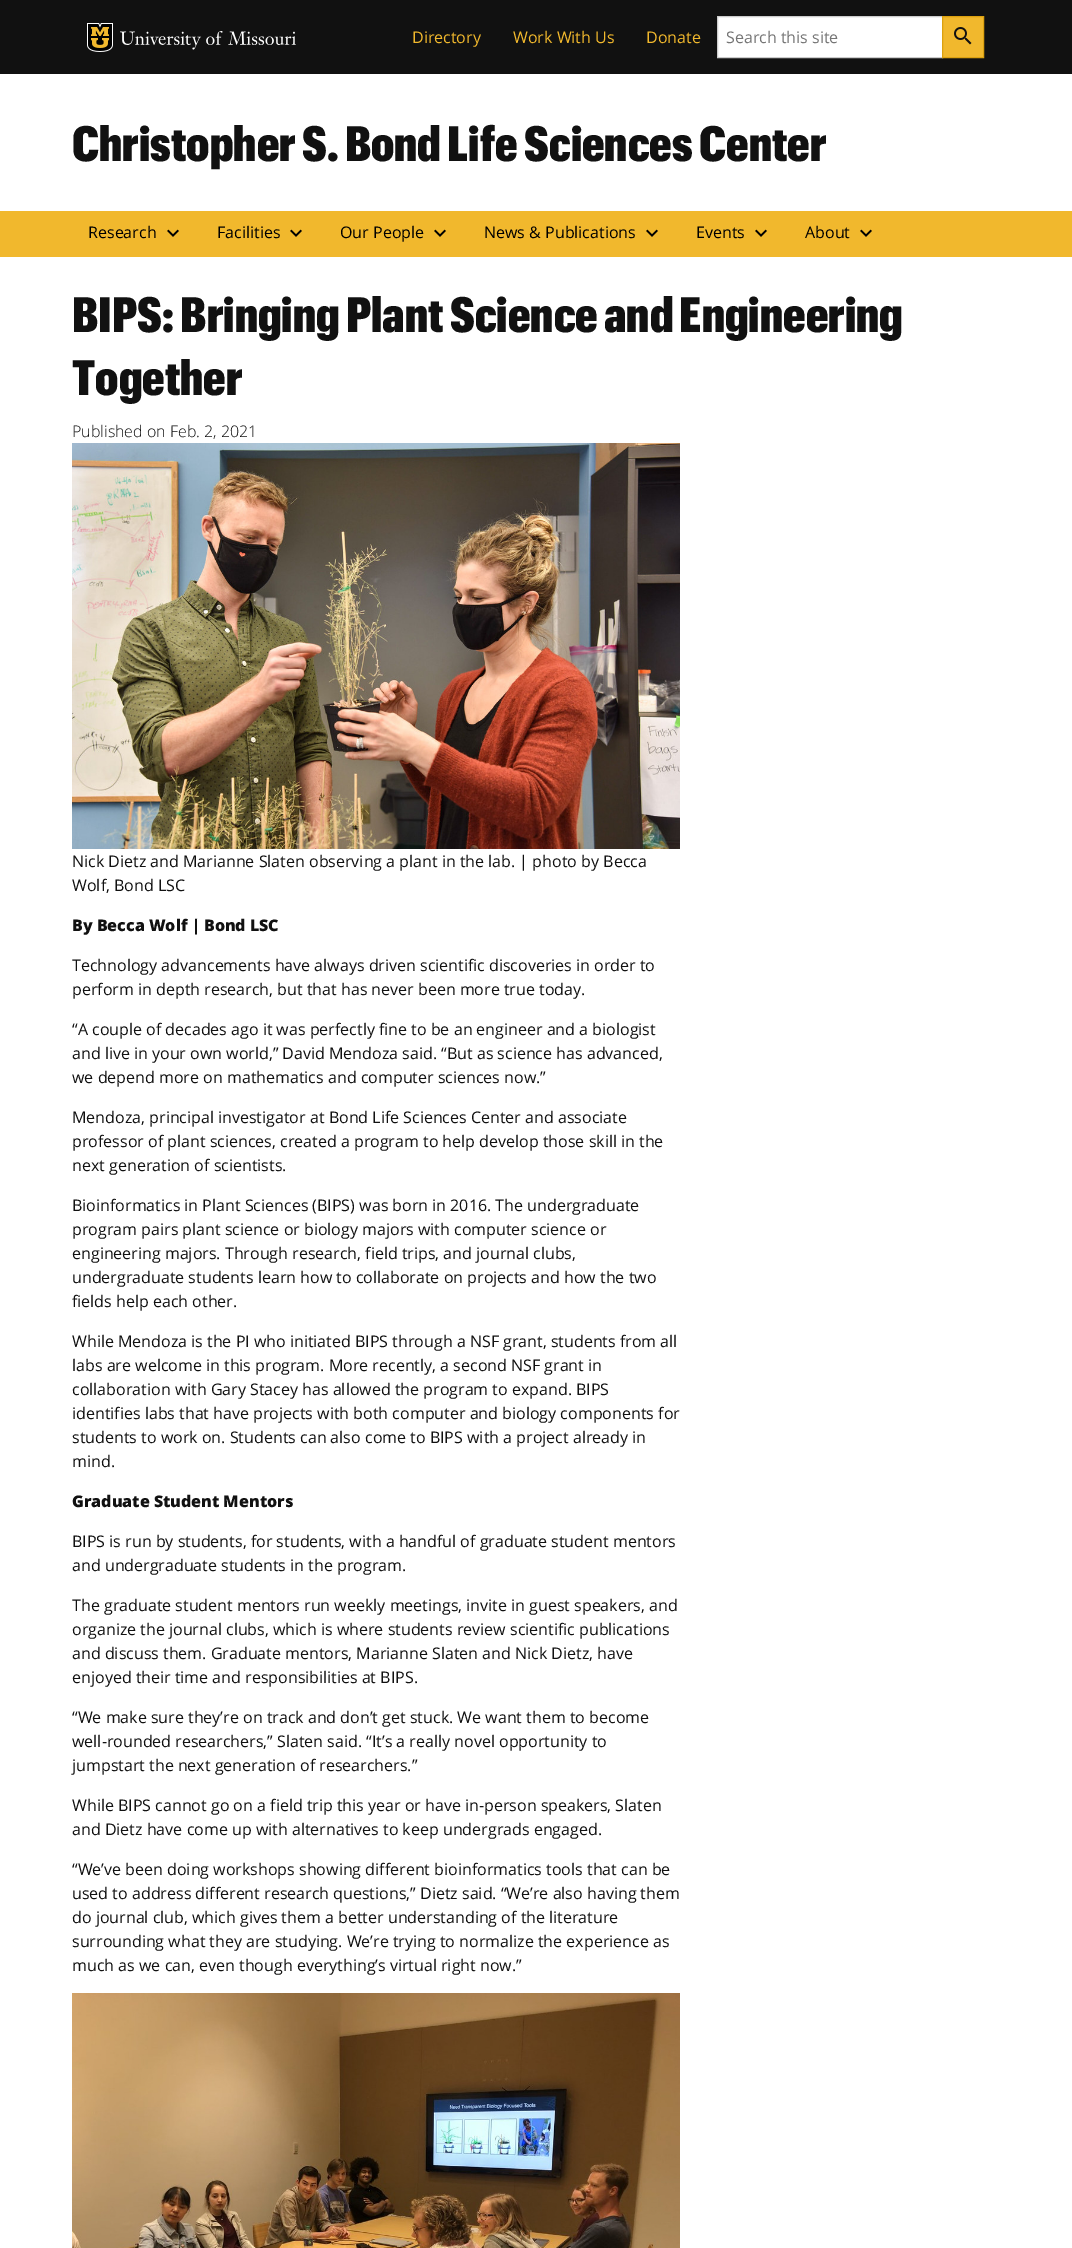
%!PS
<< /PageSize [1072 2248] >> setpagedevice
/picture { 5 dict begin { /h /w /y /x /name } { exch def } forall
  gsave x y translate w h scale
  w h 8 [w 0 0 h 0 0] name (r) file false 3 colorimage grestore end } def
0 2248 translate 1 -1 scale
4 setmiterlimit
1 setgray
0 0 1072 2248 rectfill
0.067 setgray
0 0 1072 74 rectfill
(img1.rgb) 87 23 26 29 picture
(img2.rgb) 120 31 176 19 picture
/OpenSans-Regular [16 0 0 -16 0 0] selectfont
0.945 0.722 0.176 setrgbcolor
412 43 moveto (Directory) show
513 43 moveto (Work With Us) show
646 43 moveto (Donate) show
1 setgray
newpath 717.5 16.5 moveto 942.5 16.5 lineto 942.5 57.5 lineto 717.5 57.5 lineto closepath gsave fill grestore
0.8 setgray
stroke
0.459 setgray
726 43 moveto (Search this site) show
0.945 0.722 0.176 setrgbcolor
newpath 942.5 16.5 moveto 983.5 16.5 lineto 983.5 57.5 lineto 942.5 57.5 lineto closepath gsave fill grestore
0.863 0.631 0.059 setrgbcolor
stroke
(img3.rgb) 954 27 18 18 picture
/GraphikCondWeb-ExtraBold [48.8 0 0 -48.8 0 0] selectfont
0.067 setgray
72 161 moveto (Christopher S. Bond Life Sciences Center) show
0.945 0.722 0.176 setrgbcolor
0 211 1072 46 rectfill
/OpenSans-Regular [16 0 0 -16 0 0] selectfont
0 setgray
88 238 moveto (Research) show
(img4.rgb) 167 229 12 8 picture
217 238 moveto (Facilities) show
(img4.rgb) 290 229 12 8 picture
340 238 moveto (Our People) show
(img4.rgb) 434 229 12 8 picture
484 238 moveto (News & Publications) show
(img4.rgb) 646 229 12 8 picture
696 238 moveto (Events) show
(img4.rgb) 755 229 12 8 picture
805 238 moveto (About) show
(img4.rgb) 860 229 12 8 picture
/GraphikCondWeb-ExtraBold [48.8 0 0 -48.8 0 0] selectfont
0.067 setgray
72 332 moveto (BIPS: Bringing Plant Science and Engineering) show
72 395 moveto (Together) show
/OpenSans-Light [16 0 0 -16 0 0] selectfont
72 437 moveto (Published on Feb. 2, 2021) show
(img5.rgb) 72 443 608 406 picture
/OpenSans-Regular [16 0 0 -16 0 0] selectfont
72 867 moveto (Nick Dietz and Marianne Slaten observing a plant in the lab. | photo by Becca) show
72 891 moveto (Wolf, Bond LSC) show
/OpenSans-ExtraBold [16 0 0 -16 0 0] selectfont
72 931 moveto (By Becca Wolf | Bond LSC) show
/OpenSans-Regular [16 0 0 -16 0 0] selectfont
72 971 moveto (Technology advancements have always driven scientific discoveries in order to) show
72 995 moveto (perform in depth research, but that has never been more true today.) show
72 1035 moveto (“A couple of decades ago it was perfectly fine to be an engineer and a biologist) show
72 1059 moveto (and live in your own world,” David Mendoza said. “But as science has advanced,) show
72 1083 moveto (we depend more on mathematics and computer sciences now.”) show
72 1123 moveto (Mendoza, principal investigator at Bond Life Sciences Center and associate) show
72 1147 moveto (professor of plant sciences, created a program to help develop those skill in the) show
72 1171 moveto (next generation of scientists.) show
72 1211 moveto (Bioinformatics in Plant Sciences \(BIPS\) was born in 2016. The undergraduate) show
72 1235 moveto (program pairs plant science or biology majors with computer science or) show
72 1259 moveto (engineering majors. Through research, field trips, and journal clubs,) show
72 1283 moveto (undergraduate students learn how to collaborate on projects and how the two) show
72 1307 moveto (fields help each other.) show
72 1347 moveto (While Mendoza is the PI who initiated BIPS through a NSF grant, students from all) show
72 1371 moveto (labs are welcome in this program. More recently, a second NSF grant in) show
72 1395 moveto (collaboration with Gary Stacey has allowed the program to expand. BIPS) show
72 1419 moveto (identifies labs that have projects with both computer and biology components for) show
72 1443 moveto (students to work on. Students can also come to BIPS with a project already in) show
72 1467 moveto (mind.) show
/OpenSans-ExtraBold [16 0 0 -16 0 0] selectfont
72 1507 moveto (Graduate Student Mentors) show
/OpenSans-Regular [16 0 0 -16 0 0] selectfont
72 1547 moveto (BIPS is run by students, for students, with a handful of graduate student mentors) show
72 1571 moveto (and undergraduate students in the program.) show
72 1611 moveto (The graduate student mentors run weekly meetings, invite in guest speakers, and) show
72 1635 moveto (organize the journal clubs, which is where students review scientific publications) show
72 1659 moveto (and discuss them. Graduate mentors, Marianne Slaten and Nick Dietz, have) show
72 1683 moveto (enjoyed their time and responsibilities at BIPS.) show
72 1723 moveto (“We make sure they’re on track and don’t get stuck. We want them to become) show
72 1747 moveto (well-rounded researchers,” Slaten said. “It’s a really novel opportunity to) show
72 1771 moveto (jumpstart the next generation of researchers.”) show
72 1811 moveto (While BIPS cannot go on a field trip this year or have in-person speakers, Slaten) show
72 1835 moveto (and Dietz have come up with alternatives to keep undergrads engaged.) show
72 1875 moveto (“We’ve been doing workshops showing different bioinformatics tools that can be) show
72 1899 moveto (used to address different research questions,” Dietz said. “We’re also having them) show
72 1923 moveto (do journal club, which gives them a better understanding of the literature) show
72 1947 moveto (surrounding what they are studying. We’re trying to normalize the experience as) show
72 1971 moveto (much as we can, even though everything’s virtual right now.”) show
(img6.rgb) 72 1993 608 255 picture
showpage
